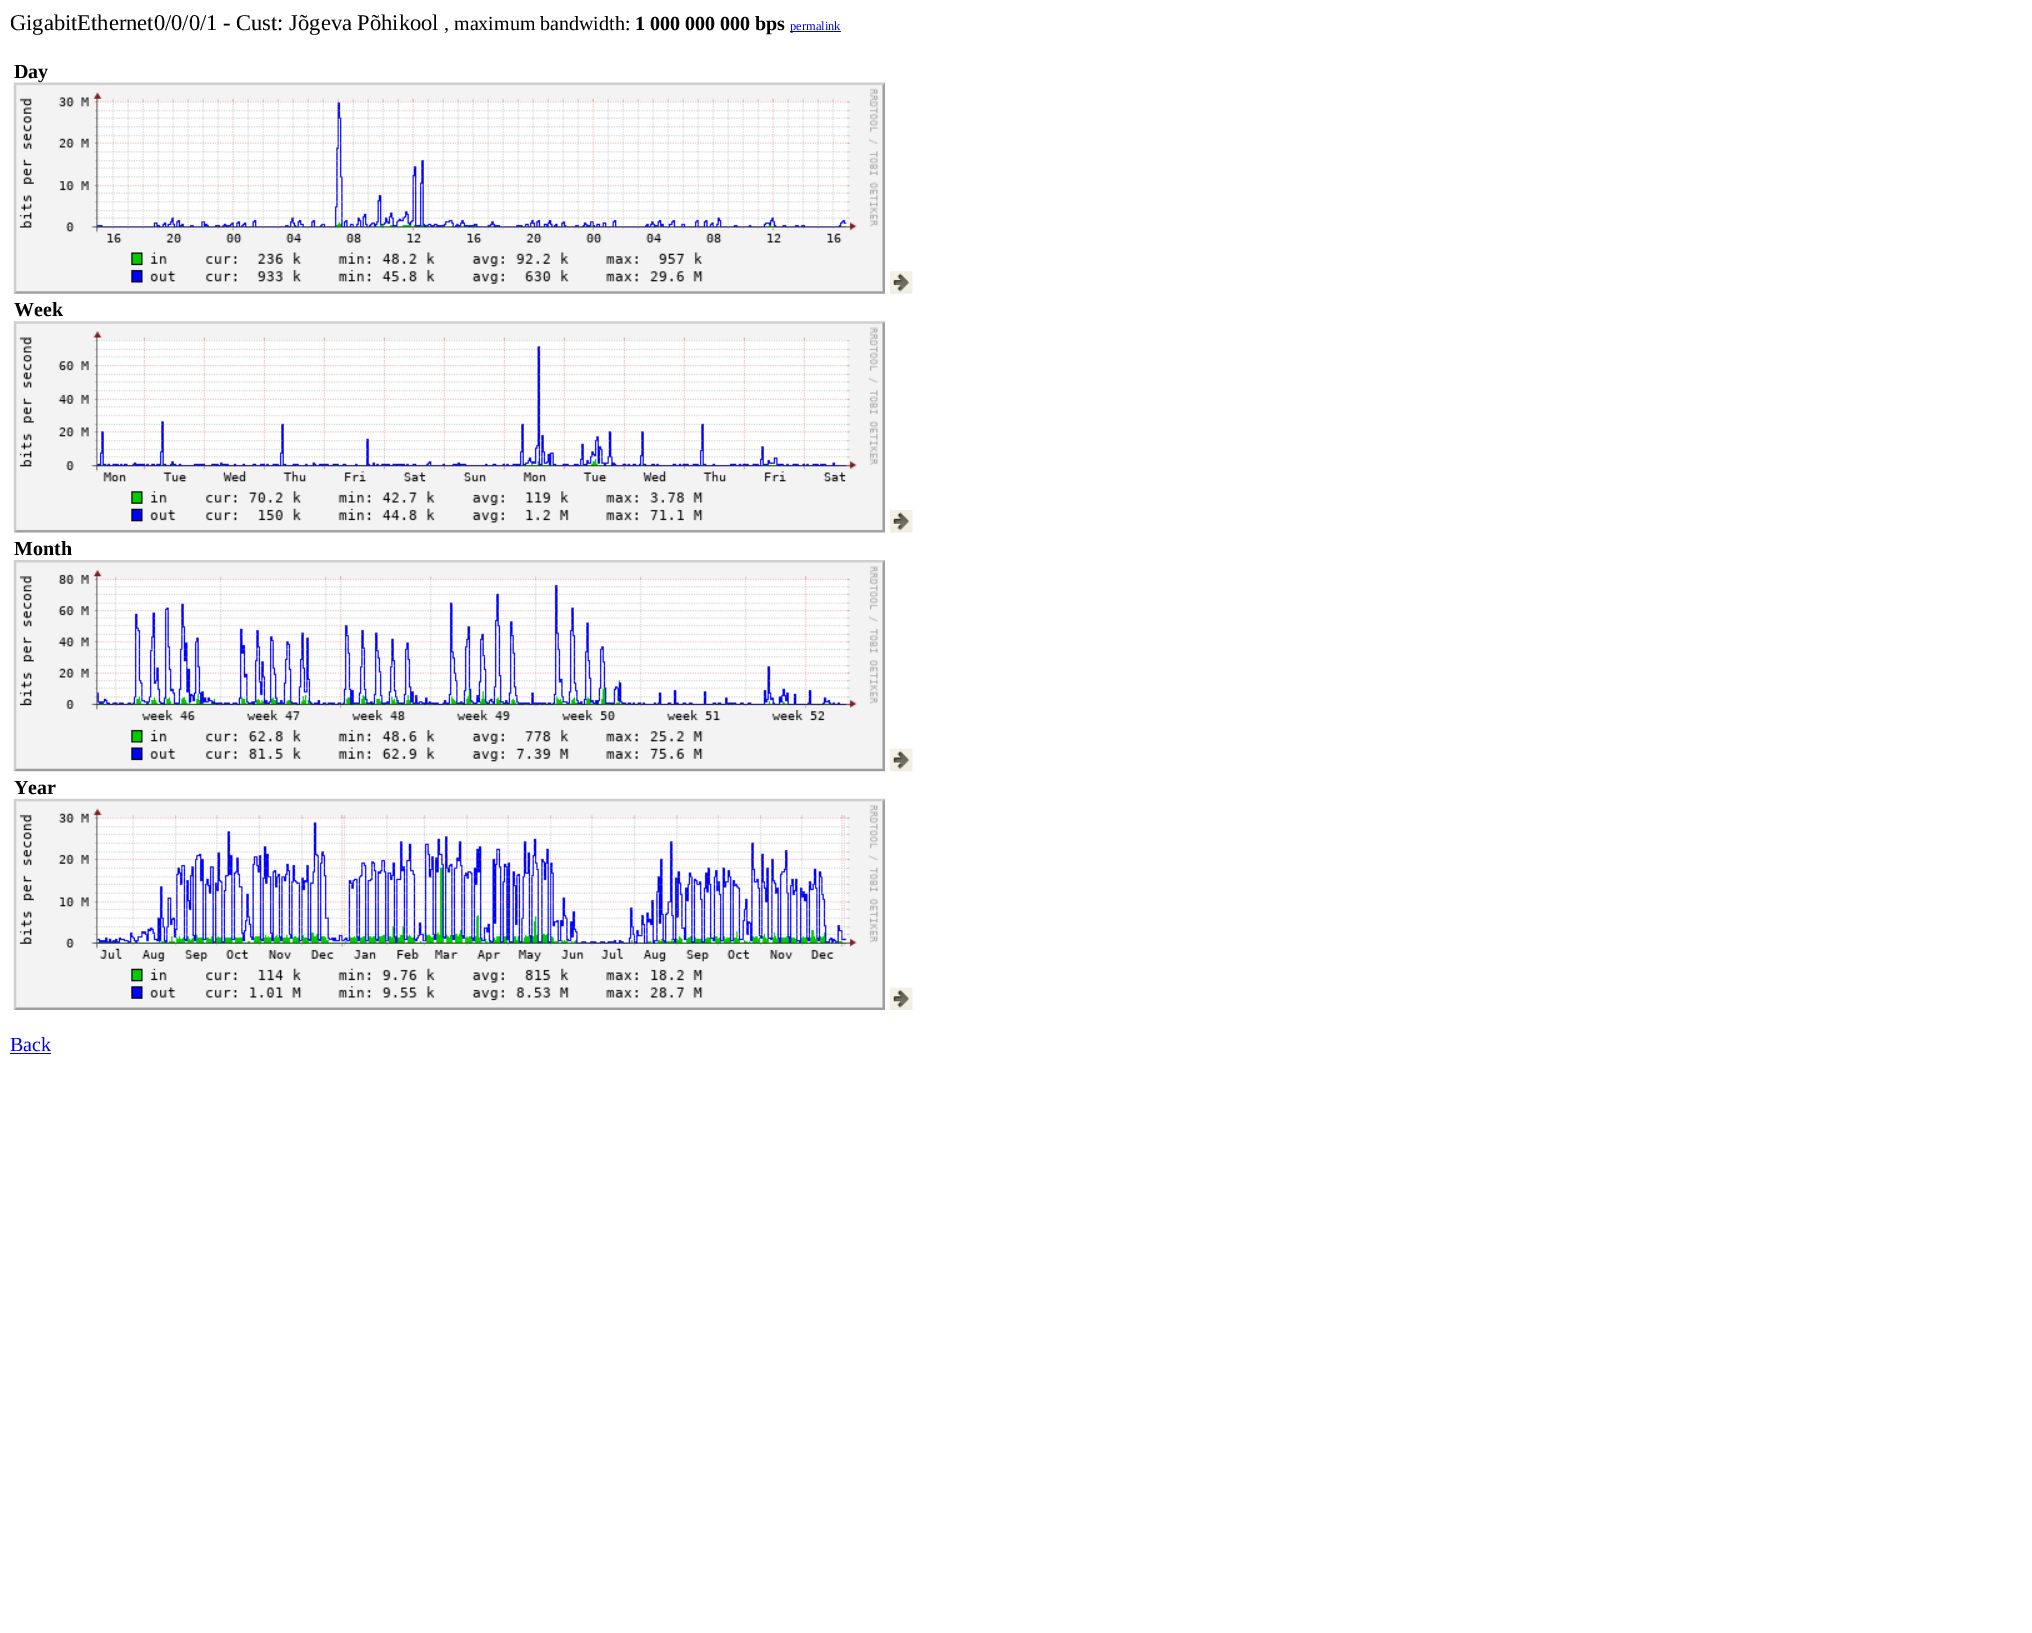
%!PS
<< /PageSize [2032 1633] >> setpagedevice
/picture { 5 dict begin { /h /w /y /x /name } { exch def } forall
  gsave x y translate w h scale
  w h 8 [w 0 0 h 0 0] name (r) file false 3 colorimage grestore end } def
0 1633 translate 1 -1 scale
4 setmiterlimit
1 setgray
0 0 2032 1633 rectfill
/LiberationSerif-Regular [22.5 0 0 -22.5 0 0] selectfont
0 setgray
10 30 moveto (GigabitEthernet0/0/0/1 - Cust: Jõgeva Põhikool) show
/LiberationSerif-Regular [20 0 0 -20 0 0] selectfont
444 30 moveto (, maximum bandwidth:) show
/LiberationSerif-Bold [20 0 0 -20 0 0] selectfont
635 30 moveto (1 000 000 000 bps) show
0 0 0.933 setrgbcolor
790 31 51 1 rectfill
/LiberationSerif-Regular [12.5 0 0 -12.5 0 0] selectfont
790 30 moveto (permalink) show
/LiberationSerif-Bold [20 0 0 -20 0 0] selectfont
0 setgray
14 78 moveto (Day) show
(img1.rgb) 13 82 872 212 picture
(img2.rgb) 890 271 23 23 picture
14 316 moveto (Week) show
(img3.rgb) 13 321 872 212 picture
(img4.rgb) 890 510 23 23 picture
14 555 moveto (Month) show
(img5.rgb) 13 560 872 212 picture
(img6.rgb) 890 748 23 24 picture
14 794 moveto (Year) show
(img7.rgb) 13 798 872 212 picture
(img8.rgb) 890 987 23 23 picture
/LiberationSerif-Regular [20 0 0 -20 0 0] selectfont
0 0 0.933 setrgbcolor
10 1051 moveto (Back) show
10 1053 41 1 rectfill
showpage
